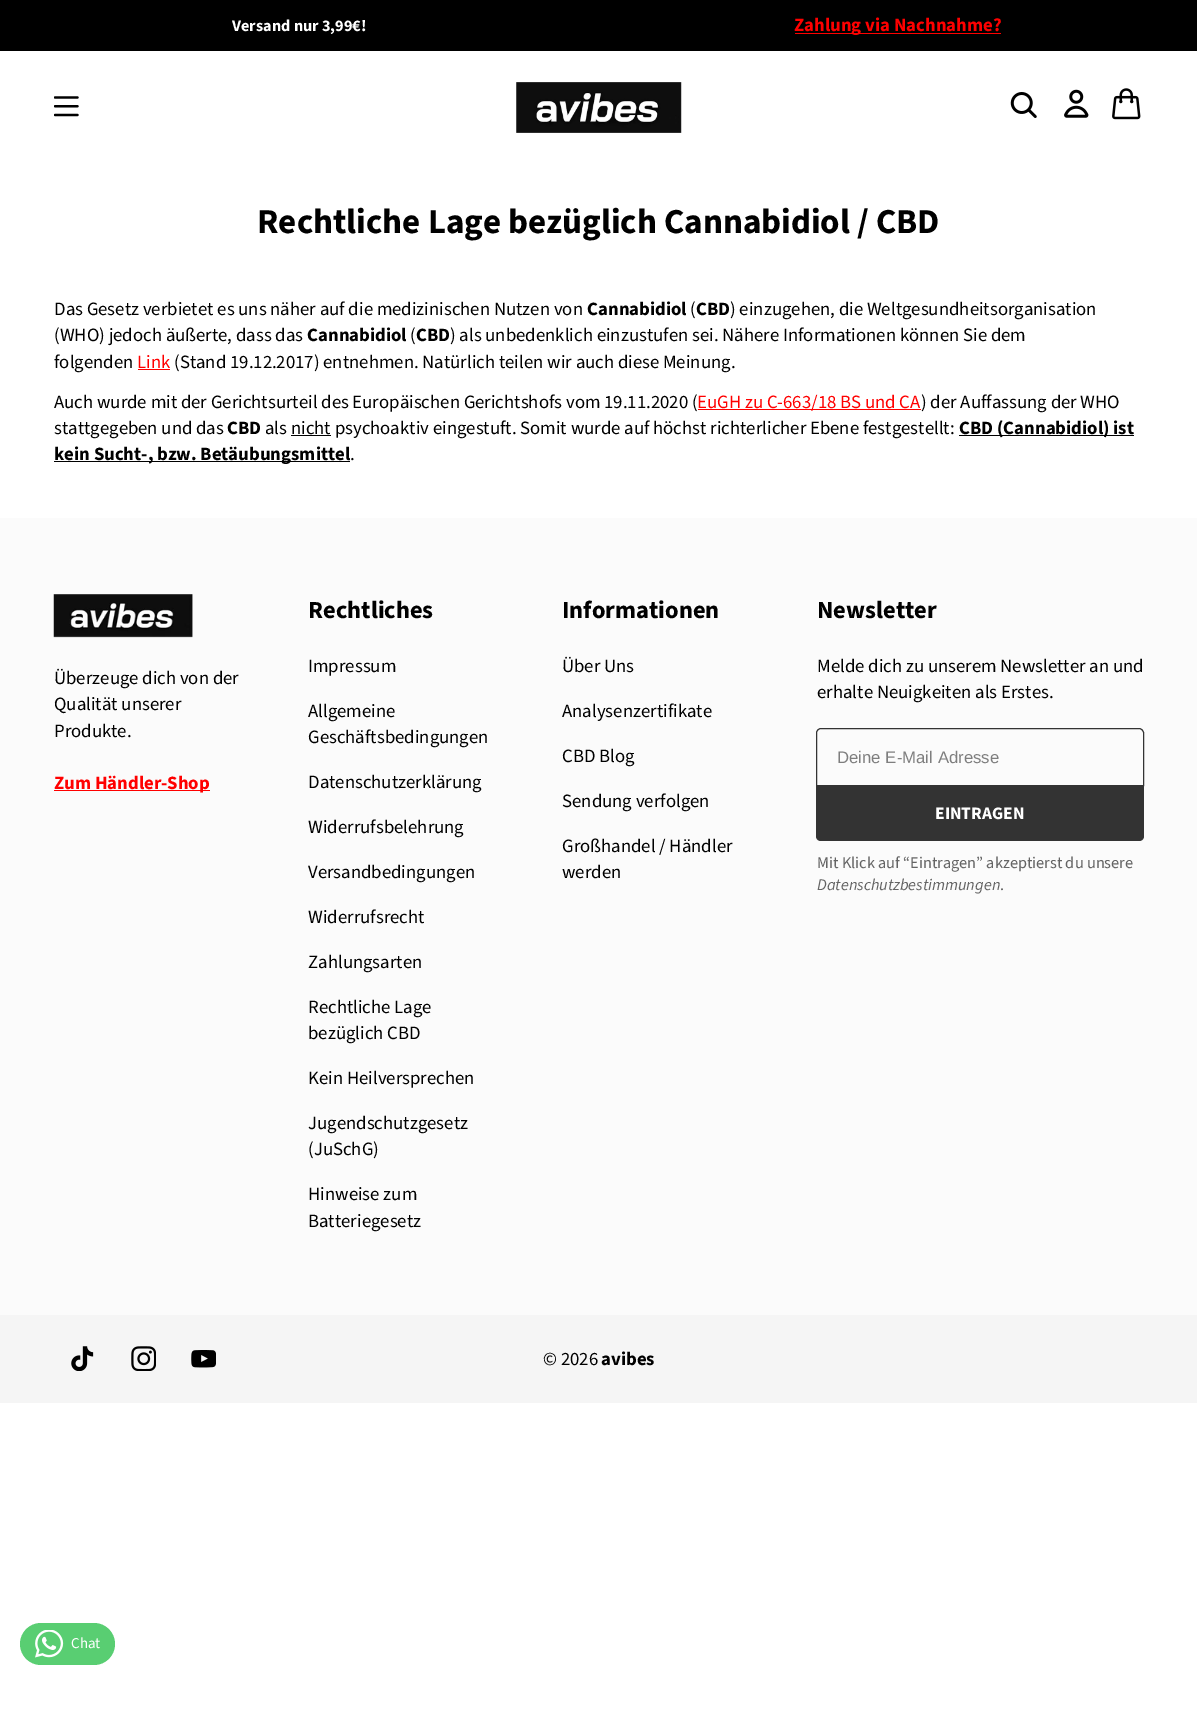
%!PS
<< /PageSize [1197 1720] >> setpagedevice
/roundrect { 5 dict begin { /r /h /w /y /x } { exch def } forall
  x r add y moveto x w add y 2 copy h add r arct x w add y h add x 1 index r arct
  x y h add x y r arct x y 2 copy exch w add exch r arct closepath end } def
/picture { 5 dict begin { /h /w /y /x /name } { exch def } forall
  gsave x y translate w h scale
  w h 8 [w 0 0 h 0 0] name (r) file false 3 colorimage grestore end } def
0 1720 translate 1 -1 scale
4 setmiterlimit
1 setgray
0 0 1197 1720 rectfill
0 setgray
0 0 1197 51 rectfill
/SourceSansPro-Bold [16.25 0 0 -16.25 0 0] selectfont
1 setgray
232 31 moveto (Versand nur 3,99€!) show
1 0 0 setrgbcolor
795 33 206 1 rectfill
/SourceSansPro-Bold [18.75 0 0 -18.75 0 0] selectfont
794 31 moveto (Zahlung via Nachnahme?) show
(img1.rgb) 54 96 25 21 picture
(img2.rgb) 516 82 166 51 picture
(img3.rgb) 1010 92 27 26 picture
(img4.rgb) 1064 89 25 29 picture
(img5.rgb) 1112 88 29 32 picture
/SourceSansPro-Bold [35 0 0 -35 0 0] selectfont
0 setgray
257 233 moveto (Rechtliche Lage bezüglich Cannabidiol / CBD) show
/SourceSansPro-Regular [18.75 0 0 -18.75 0 0] selectfont
54 315 moveto (Das Gesetz verbietet es uns näher auf die medizinischen Nutzen von) show
/SourceSansPro-Bold [18.75 0 0 -18.75 0 0] selectfont
587 315 moveto (Cannabidiol) show
/SourceSansPro-Regular [18.75 0 0 -18.75 0 0] selectfont
690 315 moveto (\() show
/SourceSansPro-Bold [18.75 0 0 -18.75 0 0] selectfont
696 315 moveto (CBD) show
/SourceSansPro-Regular [18.75 0 0 -18.75 0 0] selectfont
730 315 moveto (\) einzugehen, die Weltgesundheitsorganisation) show
54 341 moveto (\(WHO\) jedoch äußerte, dass das) show
/SourceSansPro-Bold [18.75 0 0 -18.75 0 0] selectfont
307 341 moveto (Cannabidiol) show
/SourceSansPro-Regular [18.75 0 0 -18.75 0 0] selectfont
410 341 moveto (\() show
/SourceSansPro-Bold [18.75 0 0 -18.75 0 0] selectfont
416 341 moveto (CBD) show
/SourceSansPro-Regular [18.75 0 0 -18.75 0 0] selectfont
450 341 moveto (\) als unbedenklich einzustufen sei. Nähere Informationen können Sie dem) show
54 368 moveto (folgenden) show
1 0 0 setrgbcolor
137 368 moveto (Link) show
138 369 32 1 rectfill
0 setgray
174 368 moveto (\(Stand 19.12.2017\) entnehmen. Natürlich teilen wir auch diese Meinung.) show
54 408 moveto (Auch wurde mit der Gerichtsurteil des Europäischen Gerichtshofs vom 19.11.2020 \() show
1 0 0 setrgbcolor
698 409 223 1 rectfill
697 408 moveto (EuGH zu C-663/18 BS und CA) show
0 setgray
921 408 moveto (\) der Auffassung der WHO) show
54 434 moveto (stattgegeben und das) show
/SourceSansPro-Bold [18.75 0 0 -18.75 0 0] selectfont
227 434 moveto (CBD) show
/SourceSansPro-Regular [18.75 0 0 -18.75 0 0] selectfont
265 434 moveto (als nicht psychoaktiv eingestuft. Somit wurde auf höchst richterlicher Ebene festgestellt:) show
959 435 175 1 rectfill
/SourceSansPro-Bold [18.75 0 0 -18.75 0 0] selectfont
959 434 moveto (CBD \(Cannabidiol\) ist) show
291 435 40 1 rectfill
54 461 296 1 rectfill
54 460 moveto (kein Sucht-, bzw. Betäubungsmittel) show
/SourceSansPro-Regular [18.75 0 0 -18.75 0 0] selectfont
350 460 moveto (.) show
0.984 setgray
0 518 1197 797 rectfill
(img6.rgb) 53 594 140 44 picture
0 setgray
54 684 moveto (Überzeuge dich von der) show
54 710 moveto (Qualität unserer) show
54 737 moveto (Produkte.) show
1 0 0 setrgbcolor
54 790 156 1 rectfill
/SourceSansPro-Bold [18.75 0 0 -18.75 0 0] selectfont
54 789 moveto (Zum Händler-Shop) show
/SourceSansPro-Bold [24.5 0 0 -24.5 0 0] selectfont
0 setgray
308 618 moveto (Rechtliches) show
/SourceSansPro-Regular [18.75 0 0 -18.75 0 0] selectfont
308 672 moveto (Impressum) show
308 717 moveto (Allgemeine) show
308 743 moveto (Geschäftsbedingungen) show
308 788 moveto (Datenschutzerklärung) show
308 833 moveto (Widerrufsbelehrung) show
308 878 moveto (Versandbedingungen) show
308 923 moveto (Widerrufsrecht) show
308 968 moveto (Zahlungsarten) show
308 1013 moveto (Rechtliche Lage) show
308 1039 moveto (bezüglich CBD) show
308 1084 moveto (Kein Heilversprechen) show
308 1129 moveto (Jugendschutzgesetz) show
308 1155 moveto (\(JuSchG\)) show
308 1200 moveto (Hinweise zum) show
308 1227 moveto (Batteriegesetz) show
/SourceSansPro-Bold [24.5 0 0 -24.5 0 0] selectfont
562 618 moveto (Informationen) show
/SourceSansPro-Regular [18.75 0 0 -18.75 0 0] selectfont
562 672 moveto (Über Uns) show
562 717 moveto (Analysenzertifikate) show
562 762 moveto (CBD Blog) show
562 807 moveto (Sendung verfolgen) show
562 852 moveto (Großhandel / Händler) show
562 878 moveto (werden) show
/SourceSansPro-Bold [24.5 0 0 -24.5 0 0] selectfont
817 618 moveto (Newsletter) show
/SourceSansPro-Regular [18.75 0 0 -18.75 0 0] selectfont
817 672 moveto (Melde dich zu unserem Newsletter an und) show
817 698 moveto (erhalte Neuigkeiten als Erstes.) show
0.2 setgray
newpath 821 728.5 moveto 1139 728.5 lineto 1141.5 728.5 1143.5 730.5 1143.5 733 curveto 1143.5 785.5 lineto 816.5 785.5 lineto 816.5 733 lineto 816.5 730.5 818.5 728.5 821 728.5 curveto closepath stroke
/LiberationSans-Regular [16.75 0 0 -16.75 0 0] selectfont
0.494 setgray
837 763 moveto (Deine E-Mail Adresse) show
0.2 setgray
newpath 816 786 moveto 1144 786 lineto 1144 836 lineto 1144 839 1142 841 1139 841 curveto 821 841 lineto 818 841 816 839 816 836 curveto closepath fill
/SourceSansPro-Bold [17.5 0 0 -17.5 0 0] selectfont
1 setgray
935 819 moveto (EINTRAGEN) show
/SourceSansPro-Regular [16.3 0 0 -16.3 0 0] selectfont
0.392 setgray
817 868 moveto (Mit Klick auf “Eintragen” akzeptierst du unsere) show
/SourceSansPro-Italic [16.3 0 0 -16.3 0 0] selectfont
817 890 moveto (Datenschutzbestimmungen) show
/SourceSansPro-Regular [16.3 0 0 -16.3 0 0] selectfont
1000 890 moveto (.) show
0.961 setgray
0 1315 1197 88 rectfill
(img7.rgb) 71 1346 23 25 picture
(img8.rgb) 131 1346 25 25 picture
(img9.rgb) 191 1350 25 18 picture
/SourceSansPro-Regular [18.75 0 0 -18.75 0 0] selectfont
0 setgray
543 1365 moveto (© 2026) show
/SourceSansPro-Bold [18.75 0 0 -18.75 0 0] selectfont
601 1365 moveto (avibes) show
0.349 0.808 0.447 setrgbcolor
20 1623 95 42 21 roundrect fill
(img10.rgb) 35 1630 29 28 picture
/SourceSansPro-Regular [15 0 0 -15 0 0] selectfont
1 setgray
71 1648 moveto (Chat) show
showpage
